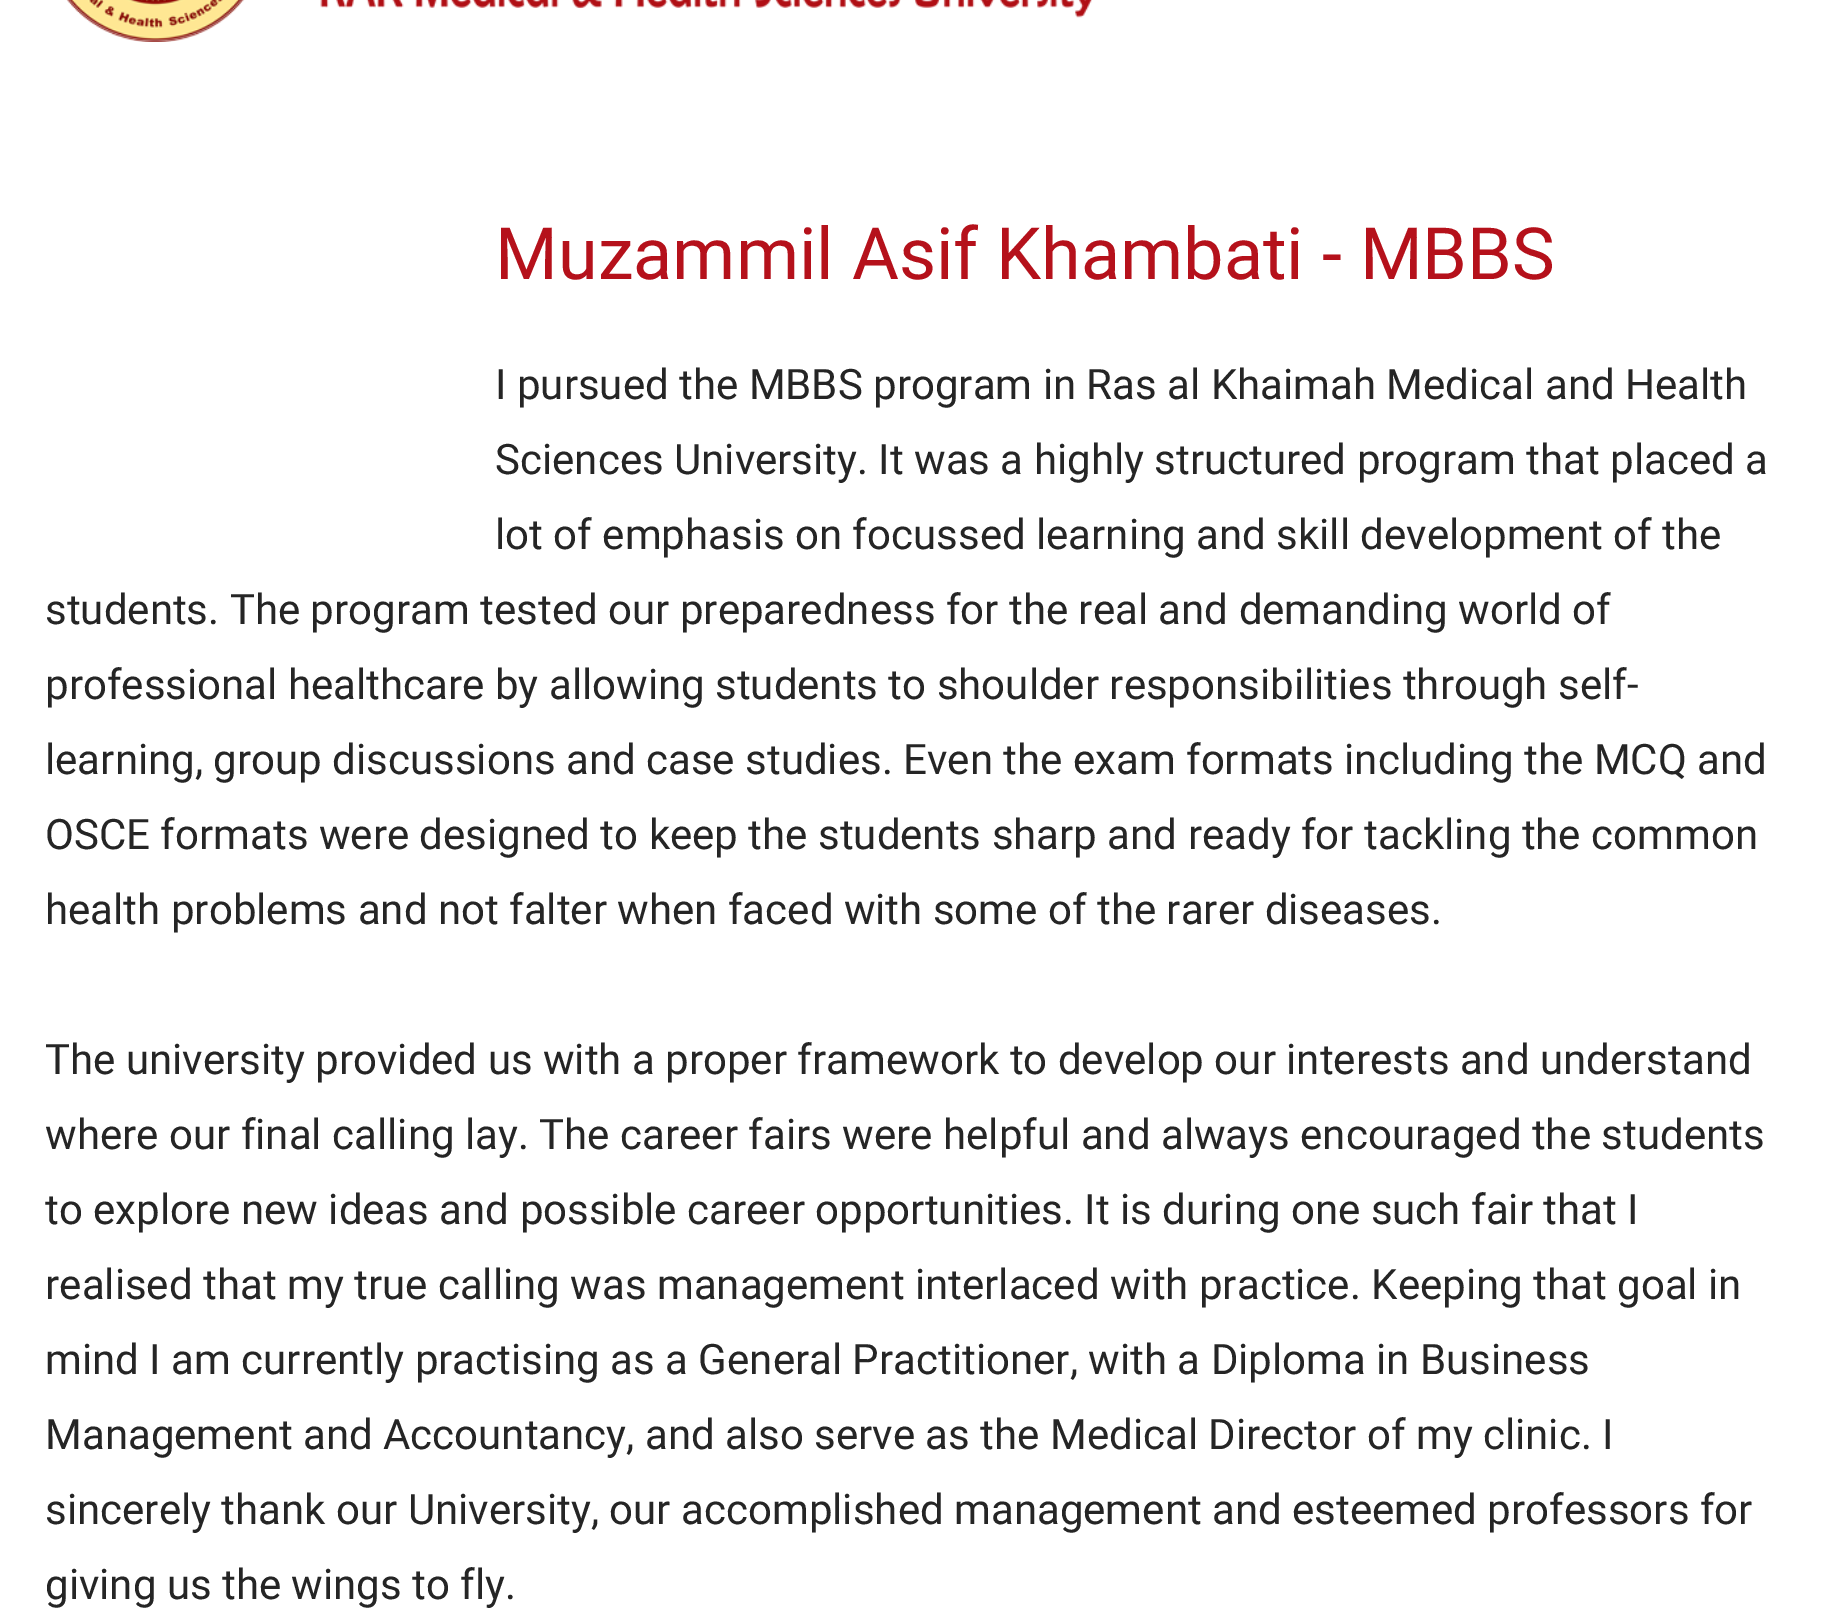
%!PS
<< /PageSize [1832 1612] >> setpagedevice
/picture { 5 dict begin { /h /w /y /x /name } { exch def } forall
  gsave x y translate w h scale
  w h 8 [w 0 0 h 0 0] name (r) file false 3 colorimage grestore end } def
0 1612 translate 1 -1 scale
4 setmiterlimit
1 setgray
0 0 1832 1612 rectfill
(img1.rgb) 66 0 1026 42 picture
/Roboto-Regular [72 0 0 -72 0 0] selectfont
0.71 0.067 0.106 setrgbcolor
495 279 moveto (Muzammil Asif Khambati - MBBS) show
/Roboto-Regular [42 0 0 -42 0 0] selectfont
0.145 setgray
495 399 moveto (I pursued the MBBS program in Ras al Khaimah Medical and Health) show
495 474 moveto (Sciences University. It was a highly structured program that placed a) show
495 549 moveto (lot of emphasis on focussed learning and skill development of the) show
45 624 moveto (students. The program tested our preparedness for the real and demanding world of) show
45 699 moveto (professional healthcare by allowing students to shoulder responsibilities through self-) show
45 774 moveto (learning, group discussions and case studies. Even the exam formats including the MCQ and) show
45 849 moveto (OSCE formats were designed to keep the students sharp and ready for tackling the common) show
45 924 moveto (health problems and not falter when faced with some of the rarer diseases.) show
45 1074 moveto (The university provided us with a proper framework to develop our interests and understand) show
45 1149 moveto (where our final calling lay. The career fairs were helpful and always encouraged the students) show
45 1224 moveto (to explore new ideas and possible career opportunities. It is during one such fair that I) show
45 1299 moveto (realised that my true calling was management interlaced with practice. Keeping that goal in) show
45 1374 moveto (mind I am currently practising as a General Practitioner, with a Diploma in Business) show
45 1449 moveto (Management and Accountancy, and also serve as the Medical Director of my clinic. I) show
45 1524 moveto (sincerely thank our University, our accomplished management and esteemed professors for) show
45 1599 moveto (giving us the wings to fly.) show
showpage
